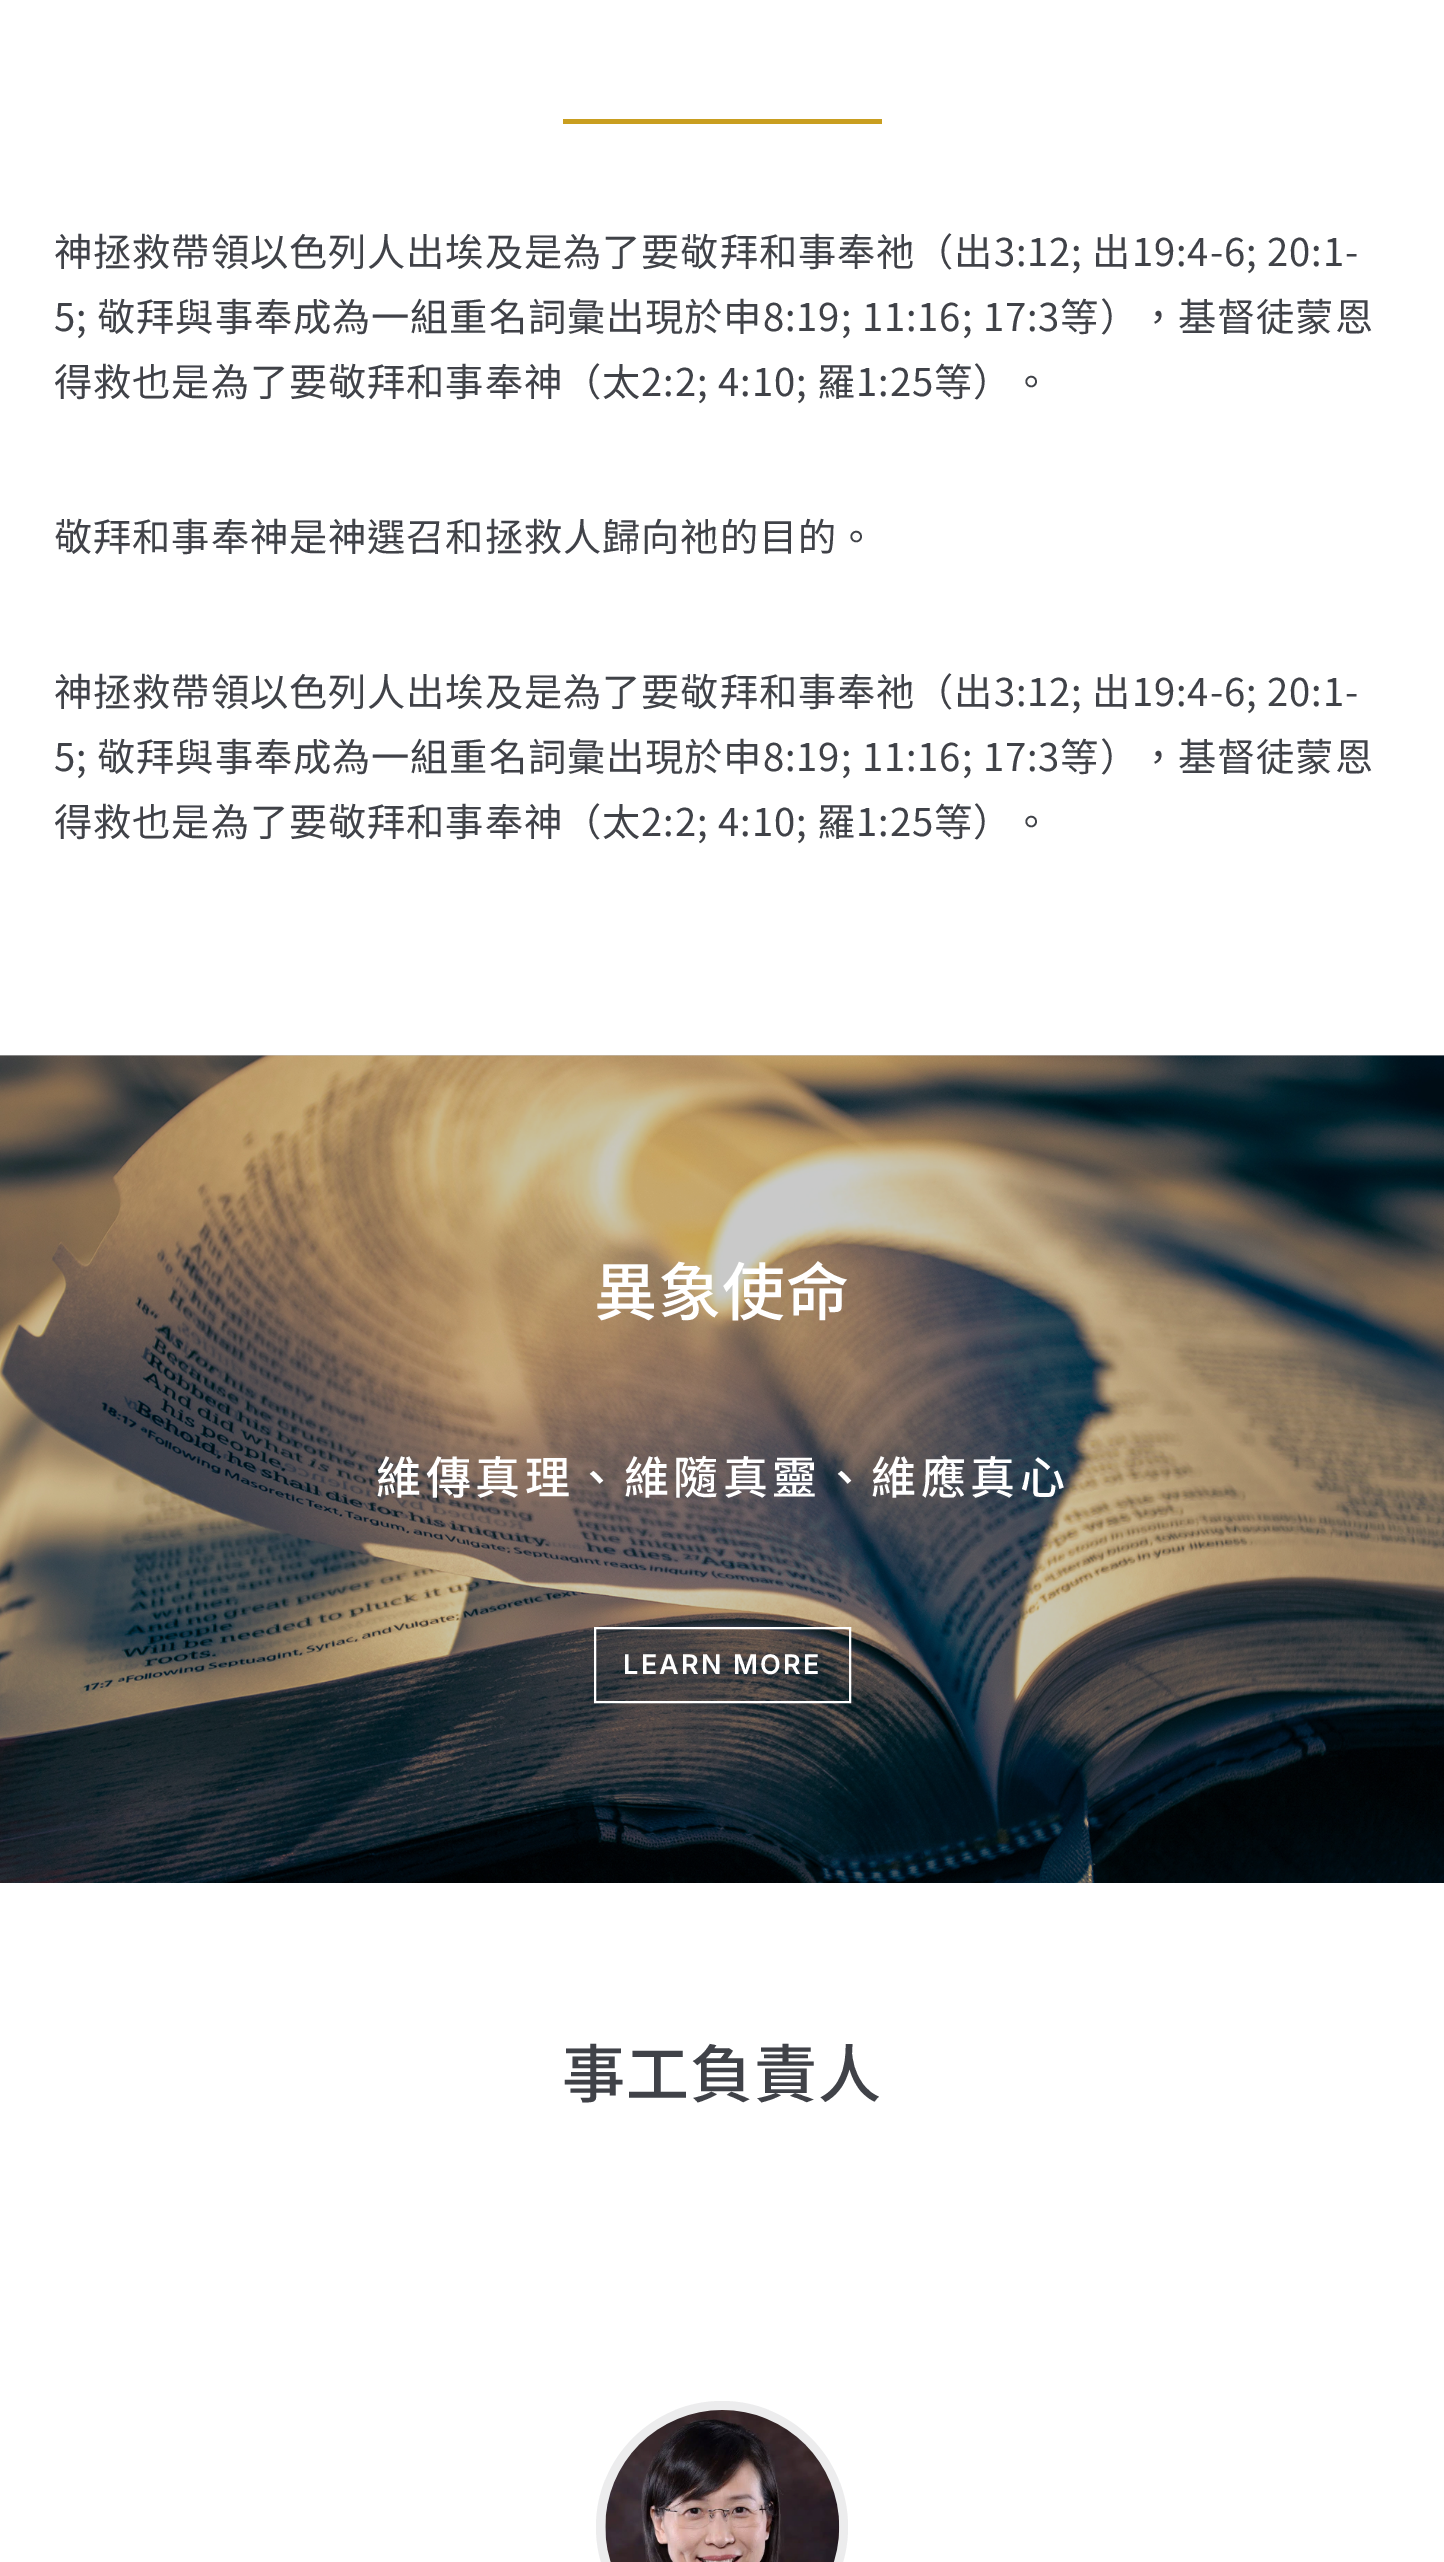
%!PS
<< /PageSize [1444 2562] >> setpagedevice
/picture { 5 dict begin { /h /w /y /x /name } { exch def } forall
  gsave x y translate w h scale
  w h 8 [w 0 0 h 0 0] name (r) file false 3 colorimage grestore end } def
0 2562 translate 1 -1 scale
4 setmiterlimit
1 setgray
0 0 1444 2562 rectfill
0.788 setgray
0 1055 1444 1 rectfill
0.788 0.62 0.125 setrgbcolor
563 119 319 5 rectfill
/NotoSansTC-Regular [38.25 0 0 -38.25 0 0] selectfont
0.251 0.259 0.282 setrgbcolor
54 266 moveto 0.9 0 (神拯救帶領以色列人出埃及是為了要敬拜和事奉祂（出3:12; 出19:4-6; 20:1-) ashow
54 331 moveto 0.9 0 (5; 敬拜與事奉成為一組重名詞彙出現於申8:19; 11:16; 17:3等），基督徒蒙恩) ashow
54 396 moveto 0.9 0 (得救也是為了要敬拜和事奉神（太2:2; 4:10; 羅1:25等）。) ashow
54 551 moveto 0.9 0 (敬拜和事奉神是神選召和拯救人歸向祂的目的。) ashow
54 706 moveto 0.9 0 (神拯救帶領以色列人出埃及是為了要敬拜和事奉祂（出3:12; 出19:4-6; 20:1-) ashow
54 771 moveto 0.9 0 (5; 敬拜與事奉成為一組重名詞彙出現於申8:19; 11:16; 17:3等），基督徒蒙恩) ashow
54 836 moveto 0.9 0 (得救也是為了要敬拜和事奉神（太2:2; 4:10; 羅1:25等）。) ashow
(img1.rgb) 0 1055 1444 828 picture
/NotoSansTC-Medium [63 0 0 -63 0 0] selectfont
1 setgray
594 1315 moveto 0.9 0 (異象使命) ashow
/NotoSansTC-Medium [45 0 0 -45 0 0] selectfont
376 1494 moveto 4.5 0 (維傳真理、維隨真靈、維應真心) ashow
2 setlinewidth
595 1628 255 74 rectstroke
/Inter-SemiBold [27 0 0 -27 0 0] selectfont
623 1674 moveto 2.25 0 (LEARN MORE) ashow
/NotoSansTC-Medium [63 0 0 -63 0 0] selectfont
0.251 0.259 0.282 setrgbcolor
562 2097 moveto 0.9 0 (事工負責人) ashow
0.925 0.925 0.929 setrgbcolor
newpath 722 2527 126 0 360 arc closepath fill
(img2.rgb) 605 2410 235 152 picture
showpage
